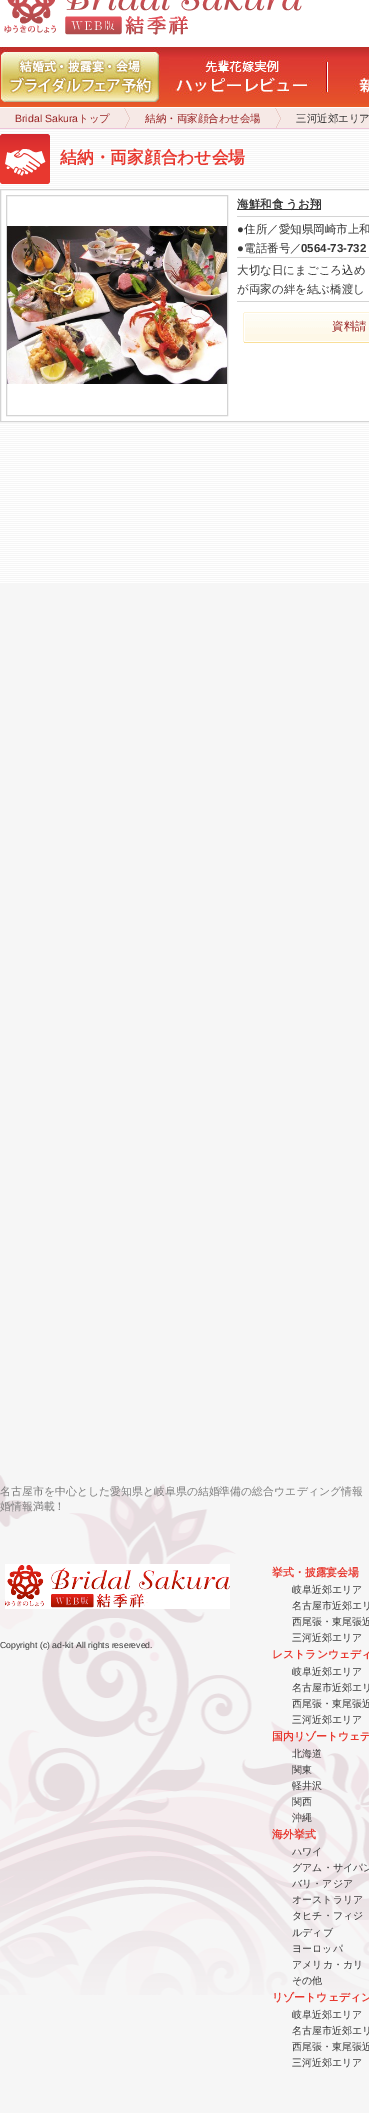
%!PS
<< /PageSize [369 2113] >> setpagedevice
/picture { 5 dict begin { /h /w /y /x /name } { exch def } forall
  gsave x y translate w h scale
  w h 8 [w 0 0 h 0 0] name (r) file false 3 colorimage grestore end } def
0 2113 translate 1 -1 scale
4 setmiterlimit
0.965 setgray
0 0 369 2113 rectfill
(img1.rgb) 0 0 369 583 picture
(img2.rgb) 0 1475 369 520 picture
(img3.rgb) 4 0 298 35 picture
(img4.rgb) 1 47 160 56 picture
(img5.rgb) 169 55 158 40 picture
(img6.rgb) 327 57 42 38 picture
0.929 0.765 0.851 setrgbcolor
0 128 369 1 rectfill
(img7.rgb) 124 108 6 20 picture
/LiberationSans-Regular [10.5 0 0 -10.5 0 0] selectfont
0.596 0.133 0.137 setrgbcolor
15 122 moveto (Bridal Sakura) show
/WenQuanYiZenHei-Medium [10.5 0 0 -10.5 0 0] selectfont
78 122 moveto (トップ) show
(img7.rgb) 275 108 6 20 picture
145 122 moveto (結納・両家顔合わせ会場) show
0.216 setgray
296 122 moveto (三河近郊エリア) show
(img8.rgb) 0 134 50 50 picture
/WenQuanYiZenHei-Bold [16.75 0 0 -16.75 0 0] selectfont
0.91 0.22 0.184 setrgbcolor
60 163 moveto (結納・両家顔合わせ会場) show
1 setgray
1 191 368 229 rectfill
0.831 setgray
0.5 189.5 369 232 rectstroke
6.5 195.5 221 220 rectstroke
(img9.rgb) 7 226 220 158 picture
237 216 132 1 rectfill
0.216 setgray
237 209 84 1 rectfill
/WenQuanYiZenHei-Bold [11.5 0 0 -11.5 0 0] selectfont
237 208 moveto (海鮮和食 うお翔) show
0.831 setgray
237 257 132 1 rectfill
/LiberationSans-Regular [11.5 0 0 -11.5 0 0] selectfont
0.216 setgray
237 233 moveto (●) show
/WenQuanYiZenHei-Medium [11.5 0 0 -11.5 0 0] selectfont
244 233 moveto (住所／愛知県岡崎市上和) show
/LiberationSans-Regular [11.5 0 0 -11.5 0 0] selectfont
237 252 moveto (●) show
/WenQuanYiZenHei-Medium [11.5 0 0 -11.5 0 0] selectfont
244 252 moveto (電話番号／) show
/LiberationSans-Bold [11.5 0 0 -11.5 0 0] selectfont
301 252 moveto (0564-73-732) show
0.831 setgray
237 301 132 1 rectfill
/WenQuanYiZenHei-Medium [11.5 0 0 -11.5 0 0] selectfont
0.216 setgray
237 274 moveto (大切な日にまごころ込め) show
237 293 moveto (が両家の絆を結ぶ橋渡し) show
(img10.rgb) 243 312 126 31 picture
0.596 0.133 0.137 setrgbcolor
332 330 moveto (資料請) show
/WenQuanYiZenHei-Medium [10.9 0 0 -10.9 0 0] selectfont
0.498 setgray
0 1495 moveto (名古屋市を中心とした愛知県と岐阜県の結婚準備の総合ウエディング情報) show
0 1510 moveto (婚情報満載！) show
(img11.rgb) 5 1564 225 45 picture
/LiberationSans-Regular [8.7 0 0 -8.7 0 0] selectfont
0.216 setgray
0 1648 moveto (Copyright \(c\) ad-kit All rights resereved.) show
/WenQuanYiZenHei-Bold [10.9 0 0 -10.9 0 0] selectfont
0.91 0.22 0.184 setrgbcolor
272 1576 moveto (挙式・披露宴会場) show
/WenQuanYiZenHei-Medium [10 0 0 -10 0 0] selectfont
0.216 setgray
292 1593 moveto (岐阜近郊エリア) show
292 1609 moveto (名古屋市近郊エリ) show
292 1625 moveto (西尾張・東尾張近) show
292 1641 moveto (三河近郊エリア) show
/WenQuanYiZenHei-Bold [10.9 0 0 -10.9 0 0] selectfont
0.91 0.22 0.184 setrgbcolor
272 1658 moveto (レストランウェディ) show
/WenQuanYiZenHei-Medium [10 0 0 -10 0 0] selectfont
0.216 setgray
292 1675 moveto (岐阜近郊エリア) show
292 1691 moveto (名古屋市近郊エリ) show
292 1707 moveto (西尾張・東尾張近) show
292 1723 moveto (三河近郊エリア) show
/WenQuanYiZenHei-Bold [10.9 0 0 -10.9 0 0] selectfont
0.91 0.22 0.184 setrgbcolor
272 1740 moveto (国内リゾートウェデ) show
/WenQuanYiZenHei-Medium [10 0 0 -10 0 0] selectfont
0.216 setgray
292 1757 moveto (北海道) show
292 1773 moveto (関東) show
292 1789 moveto (軽井沢) show
292 1805 moveto (関西) show
292 1821 moveto (沖縄) show
/WenQuanYiZenHei-Bold [10.9 0 0 -10.9 0 0] selectfont
0.91 0.22 0.184 setrgbcolor
272 1838 moveto (海外挙式) show
/WenQuanYiZenHei-Medium [10 0 0 -10 0 0] selectfont
0.216 setgray
292 1855 moveto (ハワイ) show
292 1871 moveto (グアム・サイパン) show
292 1887 moveto (バリ・アジア) show
292 1903 moveto (オーストラリア) show
292 1919 moveto (タヒチ・フィジ) show
292 1936 moveto (ルディブ) show
292 1952 moveto (ヨーロッパ) show
292 1968 moveto (アメリカ・カリ) show
292 1984 moveto (その他) show
/WenQuanYiZenHei-Bold [10.9 0 0 -10.9 0 0] selectfont
0.91 0.22 0.184 setrgbcolor
272 2001 moveto (リゾートウェディン) show
/WenQuanYiZenHei-Medium [10 0 0 -10 0 0] selectfont
0.216 setgray
292 2018 moveto (岐阜近郊エリア) show
292 2034 moveto (名古屋市近郊エリ) show
292 2050 moveto (西尾張・東尾張近) show
292 2066 moveto (三河近郊エリア) show
showpage
